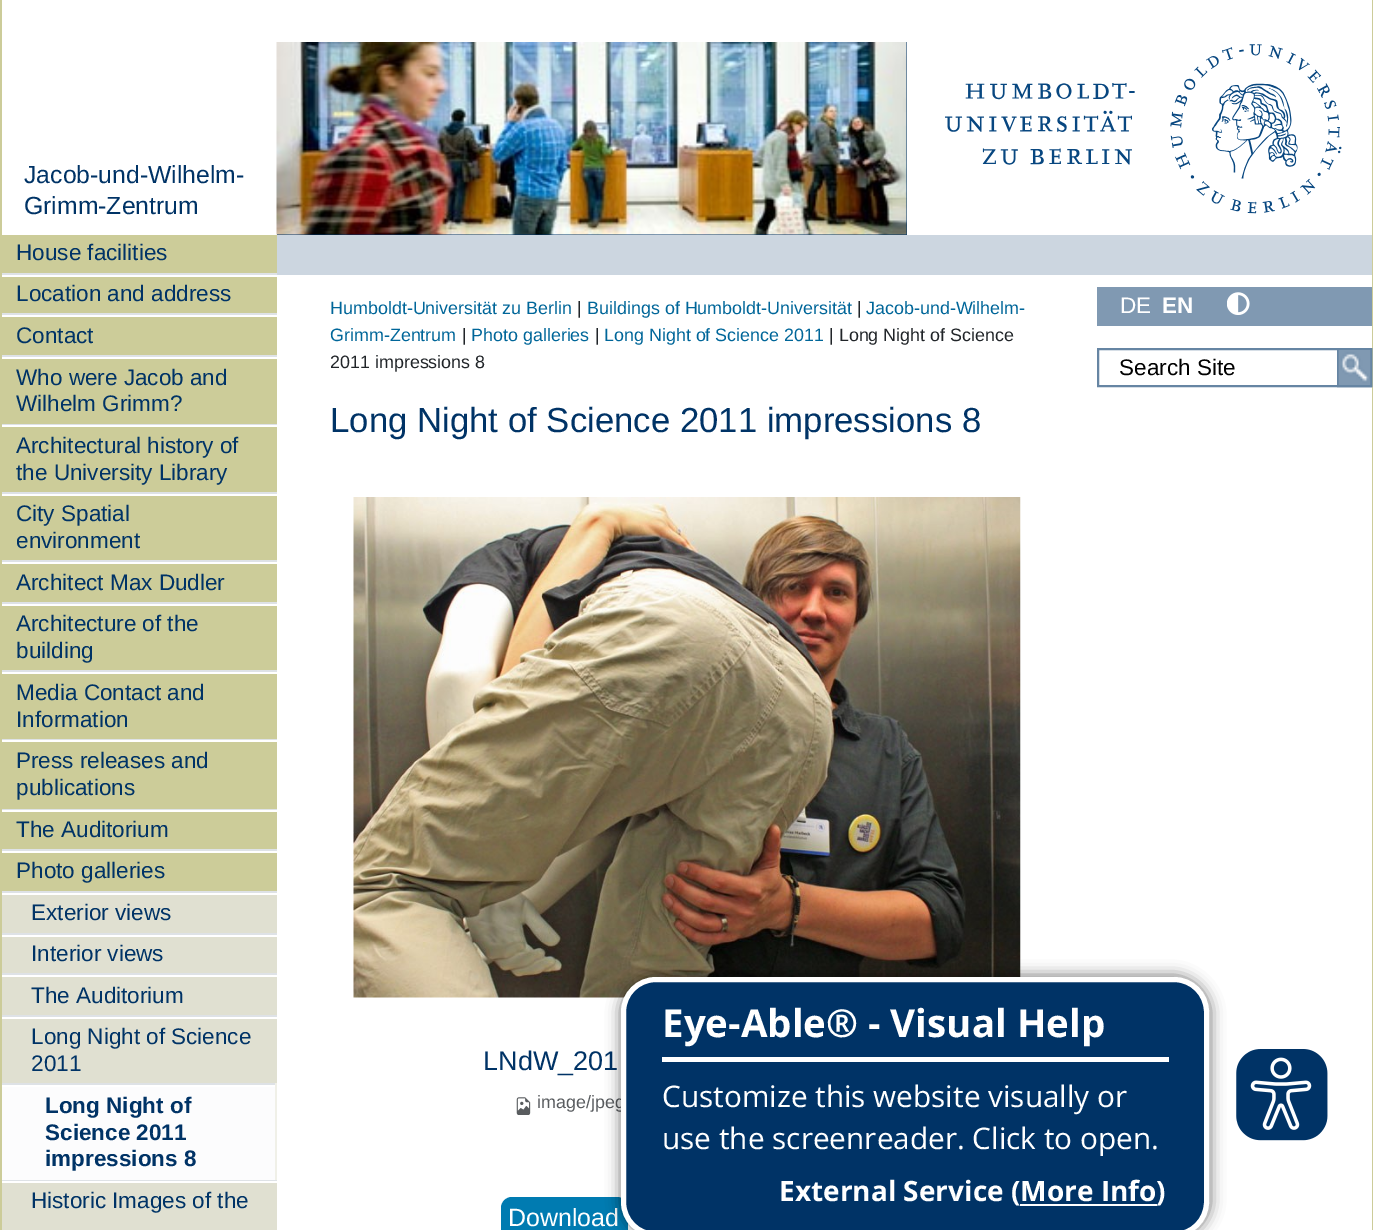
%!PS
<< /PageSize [1373 1230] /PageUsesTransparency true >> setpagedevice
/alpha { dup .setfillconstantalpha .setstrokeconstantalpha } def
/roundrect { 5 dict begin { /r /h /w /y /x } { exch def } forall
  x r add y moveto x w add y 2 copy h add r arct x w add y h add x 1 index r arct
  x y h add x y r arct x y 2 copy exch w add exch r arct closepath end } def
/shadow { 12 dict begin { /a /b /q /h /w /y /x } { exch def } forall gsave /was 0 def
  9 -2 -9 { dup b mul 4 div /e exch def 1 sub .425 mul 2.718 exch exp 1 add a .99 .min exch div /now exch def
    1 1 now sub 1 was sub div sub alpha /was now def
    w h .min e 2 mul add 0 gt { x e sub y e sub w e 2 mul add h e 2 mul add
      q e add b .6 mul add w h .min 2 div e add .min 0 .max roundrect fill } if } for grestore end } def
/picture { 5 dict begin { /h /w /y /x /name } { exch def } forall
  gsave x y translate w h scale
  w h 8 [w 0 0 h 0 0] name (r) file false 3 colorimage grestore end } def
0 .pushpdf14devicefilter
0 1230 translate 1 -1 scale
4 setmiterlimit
1 setgray
0 0 1373 1230 rectfill
0 0.2 0.4 setrgbcolor
277 42 630 193 rectfill
(img1.rgb) 276 42 631 193 picture
(img2.rgb) 945 44 397 170 picture
0.8 0.8 0.6 setrgbcolor
1372 0 1 1230 rectfill
0 0 2 1230 rectfill
/LiberationSans-Regular [24.75 0 0 -24.75 0 0] selectfont
0 0.2 0.4 setrgbcolor
24 183 moveto (Jacob-und-Wilhelm-) show
24 214 moveto (Grimm-Zentrum) show
0.8 0.8 0.6 setrgbcolor
2 235 275 38 rectfill
/LiberationSans-Regular [22.5 0 0 -22.5 0 0] selectfont
0 0.2 0.4 setrgbcolor
16 260 moveto (House facilities) show
0.8 0.8 0.6 setrgbcolor
2 277 275 36 rectfill
0.871 0.886 0.902 setrgbcolor
2 273 275 2 rectfill
0 0.2 0.4 setrgbcolor
16 301 moveto (Location and address) show
0.8 0.8 0.6 setrgbcolor
2 317 275 38 rectfill
0.871 0.886 0.902 setrgbcolor
2 313 275 2 rectfill
0 0.2 0.4 setrgbcolor
16 343 moveto (Contact) show
0.8 0.8 0.6 setrgbcolor
2 359 275 65 rectfill
0.871 0.886 0.902 setrgbcolor
2 355 275 2 rectfill
0 0.2 0.4 setrgbcolor
16 385 moveto (Who were Jacob and) show
16 411 moveto (Wilhelm Grimm?) show
0.8 0.8 0.6 setrgbcolor
2 427 275 65 rectfill
0.871 0.886 0.902 setrgbcolor
2 424 275 1 rectfill
0 0.2 0.4 setrgbcolor
16 453 moveto (Architectural history of) show
16 480 moveto (the University Library) show
0.8 0.8 0.6 setrgbcolor
2 496 275 64 rectfill
0.871 0.886 0.902 setrgbcolor
2 492 275 2 rectfill
0 0.2 0.4 setrgbcolor
16 521 moveto (City Spatial) show
16 548 moveto (environment) show
0.8 0.8 0.6 setrgbcolor
2 564 275 38 rectfill
0.871 0.886 0.902 setrgbcolor
2 560 275 2 rectfill
0 0.2 0.4 setrgbcolor
16 590 moveto (Architect Max Dudler) show
0.8 0.8 0.6 setrgbcolor
2 606 275 64 rectfill
0.871 0.886 0.902 setrgbcolor
2 602 275 2 rectfill
0 0.2 0.4 setrgbcolor
16 631 moveto (Architecture of the) show
16 658 moveto (building) show
0.8 0.8 0.6 setrgbcolor
2 674 275 65 rectfill
0.871 0.886 0.902 setrgbcolor
2 670 275 2 rectfill
0 0.2 0.4 setrgbcolor
16 700 moveto (Media Contact and) show
16 727 moveto (Information) show
0.8 0.8 0.6 setrgbcolor
2 742 275 67 rectfill
0.871 0.886 0.902 setrgbcolor
2 739 275 1 rectfill
0 0.2 0.4 setrgbcolor
16 768 moveto (Press releases and) show
16 795 moveto (publications) show
0.8 0.8 0.6 setrgbcolor
2 812 275 37 rectfill
0.871 0.886 0.902 setrgbcolor
2 809 275 1 rectfill
0 0.2 0.4 setrgbcolor
16 837 moveto (The Auditorium) show
0.8 0.8 0.6 setrgbcolor
2 853 275 38 rectfill
0.871 0.886 0.902 setrgbcolor
2 849 275 2 rectfill
0 0.2 0.4 setrgbcolor
16 878 moveto (Photo galleries) show
0.878 0.878 0.82 setrgbcolor
2 895 275 38 rectfill
0.871 0.886 0.902 setrgbcolor
2 891 275 2 rectfill
0 0.2 0.4 setrgbcolor
31 920 moveto (Exterior views) show
0.878 0.878 0.82 setrgbcolor
2 937 275 36 rectfill
0.871 0.886 0.902 setrgbcolor
2 933 275 2 rectfill
0 0.2 0.4 setrgbcolor
31 961 moveto (Interior views) show
0.878 0.878 0.82 setrgbcolor
2 977 275 38 rectfill
0.871 0.886 0.902 setrgbcolor
2 973 275 2 rectfill
0 0.2 0.4 setrgbcolor
31 1003 moveto (The Auditorium) show
0.878 0.878 0.82 setrgbcolor
2 1019 275 64 rectfill
0.871 0.886 0.902 setrgbcolor
2 1015 275 2 rectfill
0 0.2 0.4 setrgbcolor
31 1044 moveto (Long Night of Science) show
31 1071 moveto (2011) show
0.871 0.886 0.902 setrgbcolor
2 1083 275 2 rectfill
0.941 0.941 0.91 setrgbcolor
275 1083 2 97 rectfill
0.988 0.988 0.992 setrgbcolor
2 1087 273 93 rectfill
/LiberationSans-Bold [22.5 0 0 -22.5 0 0] selectfont
0 0.2 0.4 setrgbcolor
45 1113 moveto (Long Night of) show
45 1140 moveto (Science 2011) show
45 1166 moveto (impressions 8) show
0.878 0.878 0.82 setrgbcolor
2 1183 275 47 rectfill
0.871 0.886 0.902 setrgbcolor
2 1180 275 1 rectfill
/LiberationSans-Regular [22.5 0 0 -22.5 0 0] selectfont
0 0.2 0.4 setrgbcolor
31 1208 moveto (Historic Images of the) show
0.8 0.839 0.878 setrgbcolor
277 235 1095 40 rectfill
/LiberationSans-Regular [17.9 0 0 -17.9 0 0] selectfont
0 0.4 0.6 setrgbcolor
330 314 moveto (Humboldt-Universität zu Berlin) show
0.129 0.145 0.161 setrgbcolor
577 314 moveto (|) show
0 0.4 0.6 setrgbcolor
587 314 moveto (Buildings of Humboldt-Universität) show
0.129 0.145 0.161 setrgbcolor
857 314 moveto (|) show
0 0.4 0.6 setrgbcolor
866 314 moveto (Jacob-und-Wilhelm-) show
330 341 moveto (Grimm-Zentrum) show
0.129 0.145 0.161 setrgbcolor
462 341 moveto (|) show
0 0.4 0.6 setrgbcolor
471 341 moveto (Photo galleries) show
0.129 0.145 0.161 setrgbcolor
595 341 moveto (|) show
0 0.4 0.6 setrgbcolor
604 341 moveto (Long Night of Science 2011) show
0.129 0.145 0.161 setrgbcolor
829 341 moveto (| Long Night of Science) show
330 368 moveto (2011 impressions 8) show
/LiberationSans-Regular [34.75 0 0 -34.75 0 0] selectfont
0 0.2 0.4 setrgbcolor
330 432 moveto (Long Night of Science 2011 impressions 8) show
(img3.rgb) 353 497 668 501 picture
/LiberationSans-Regular [27 0 0 -27 0 0] selectfont
483 1070 moveto (LNdW_201) show
(img4.rgb) 516 1097 15 18 picture
/LiberationSans-Regular [17.9 0 0 -17.9 0 0] selectfont
0.349 0.361 0.373 setrgbcolor
537 1108 moveto (image/jpeg) show
0 0.482 0.694 setrgbcolor
501 1197 127 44 11 roundrect fill
/LiberationSans-Regular [25 0 0 -25 0 0] selectfont
1 setgray
508 1226 moveto (Download) show
0.502 0.6 0.698 setrgbcolor
1097 287 275 39 rectfill
/LiberationSans-Regular [22.5 0 0 -22.5 0 0] selectfont
1 setgray
1120 313 moveto (DE) show
/LiberationSans-Bold [22.5 0 0 -22.5 0 0] selectfont
1162 313 moveto (EN) show
(img5.rgb) 1227 292 23 23 picture
0.4 0.522 0.639 setrgbcolor
2 setlinewidth
1098 349 273 37 rectstroke
/LiberationSans-Regular [22.5 0 0 -22.5 0 0] selectfont
0 setgray
1119 375 moveto (Search Site) show
0.4 0.522 0.639 setrgbcolor
1338 349 33 37 rectstroke
(img6.rgb) 1338 350 33 35 picture
0 setgray
620 975 591 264 37 7 0.5 shadow
0 0.2 0.4 setrgbcolor
623.5 979.5 583 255 32.5 roundrect gsave fill grestore
1 setgray
5 setlinewidth
stroke
662 1057 507 5 rectfill
/OpenSans-Bold [38.5 0 0 -38.5 0 0] selectfont
662 1037 moveto (Eye-Able® - Visual Help) show
/OpenSans-Regular [29.75 0 0 -29.75 0 0] selectfont
662 1107 moveto (Customize this website visually or) show
662 1149 moveto (use the screenreader. Click to open.) show
/OpenSans-Bold [28 0 0 -28 0 0] selectfont
779 1201 moveto (External Service \(More Info) show
1020 1204 137 2 rectfill
1156 1201 moveto (\)) show
(img7.rgb) 1236 1049 92 92 picture
.poppdf14devicefilter showpage
